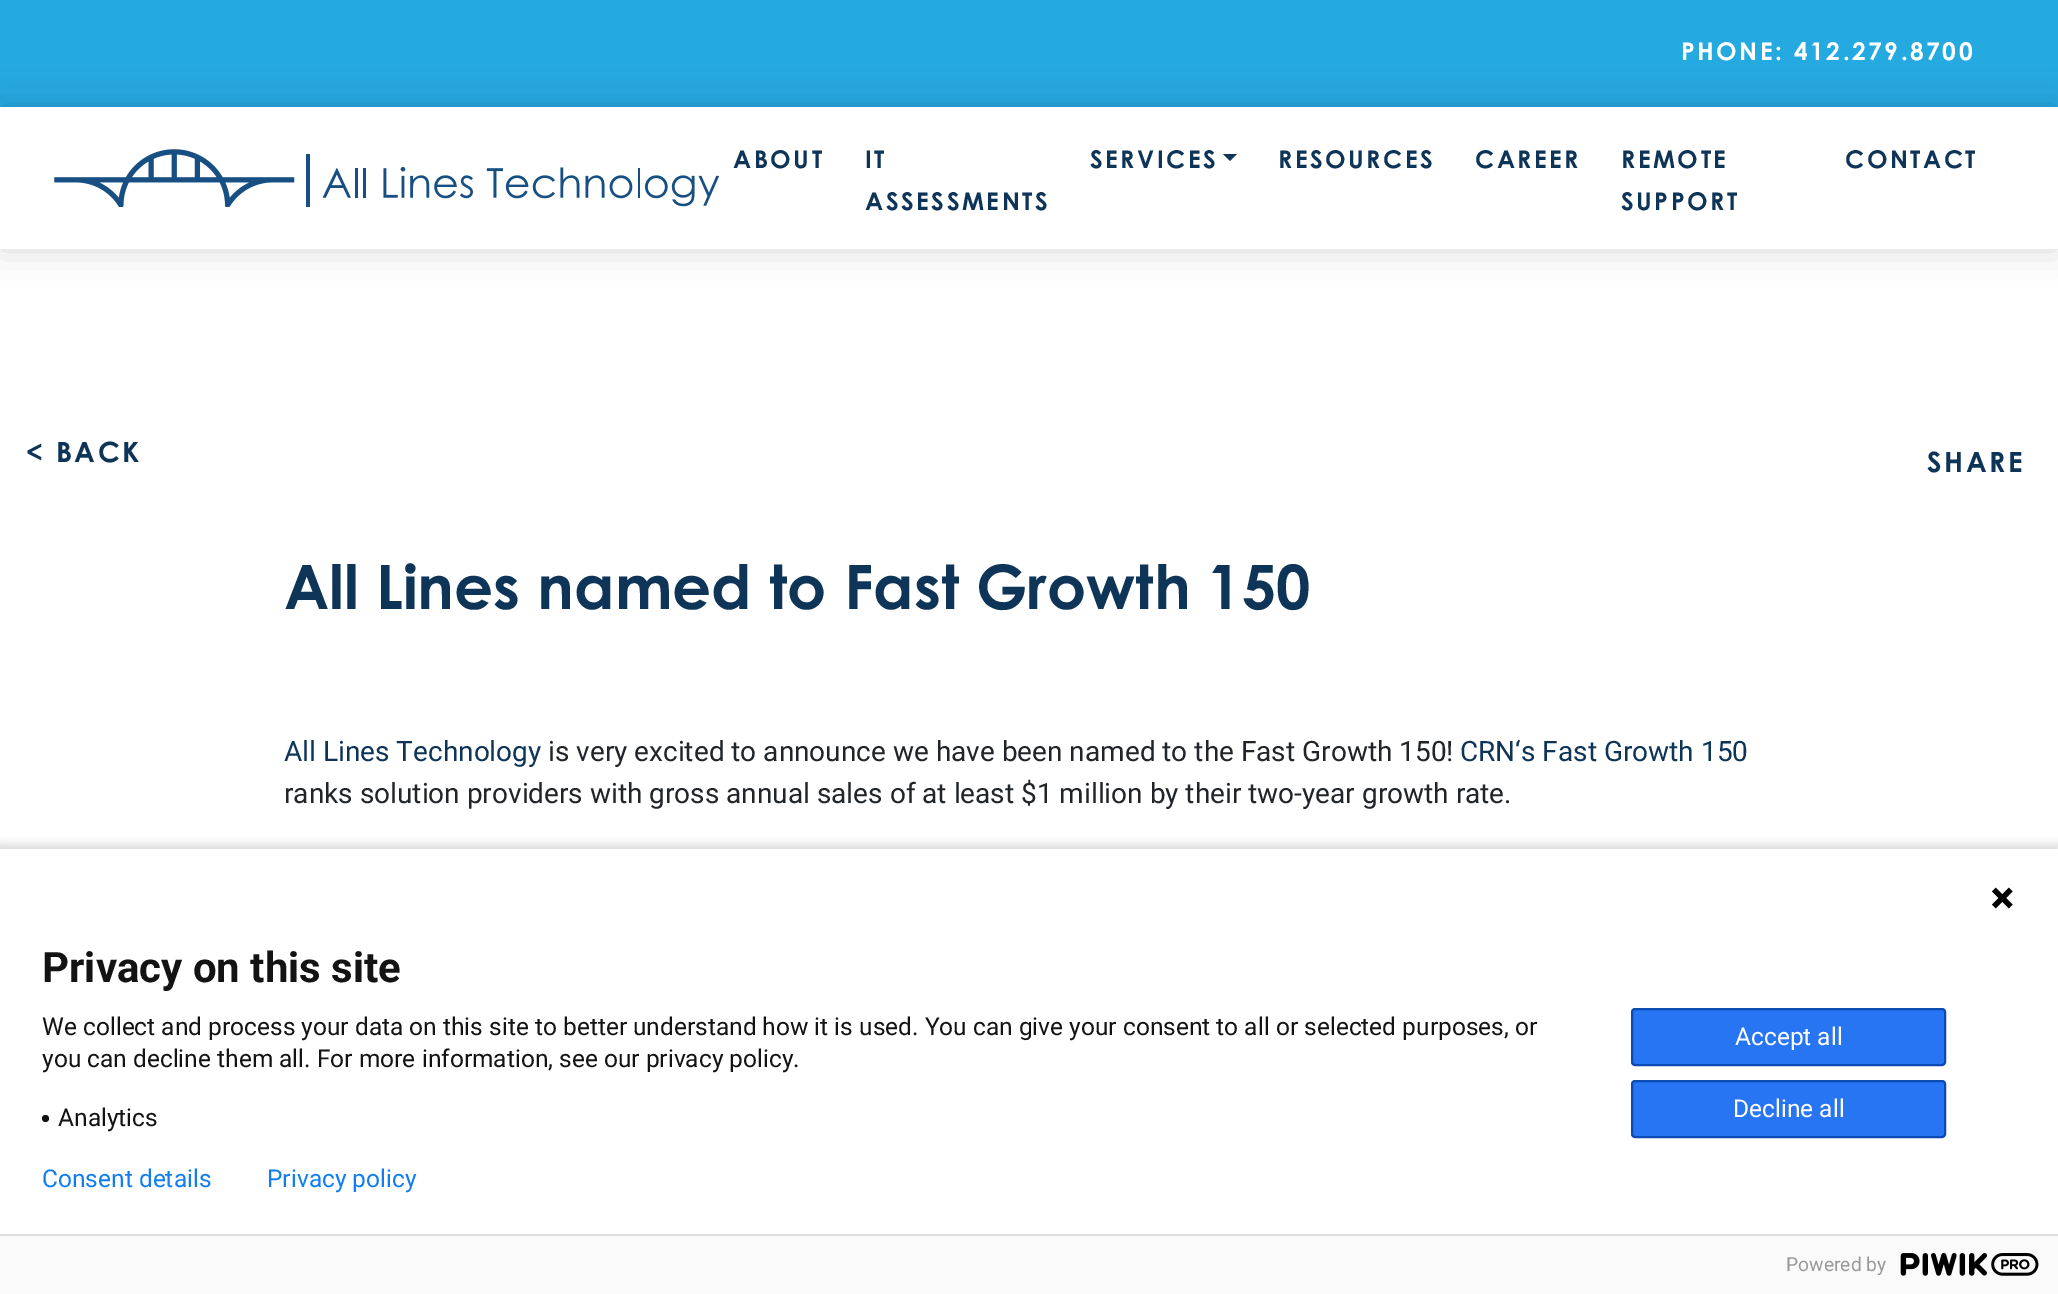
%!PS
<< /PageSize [2058 1294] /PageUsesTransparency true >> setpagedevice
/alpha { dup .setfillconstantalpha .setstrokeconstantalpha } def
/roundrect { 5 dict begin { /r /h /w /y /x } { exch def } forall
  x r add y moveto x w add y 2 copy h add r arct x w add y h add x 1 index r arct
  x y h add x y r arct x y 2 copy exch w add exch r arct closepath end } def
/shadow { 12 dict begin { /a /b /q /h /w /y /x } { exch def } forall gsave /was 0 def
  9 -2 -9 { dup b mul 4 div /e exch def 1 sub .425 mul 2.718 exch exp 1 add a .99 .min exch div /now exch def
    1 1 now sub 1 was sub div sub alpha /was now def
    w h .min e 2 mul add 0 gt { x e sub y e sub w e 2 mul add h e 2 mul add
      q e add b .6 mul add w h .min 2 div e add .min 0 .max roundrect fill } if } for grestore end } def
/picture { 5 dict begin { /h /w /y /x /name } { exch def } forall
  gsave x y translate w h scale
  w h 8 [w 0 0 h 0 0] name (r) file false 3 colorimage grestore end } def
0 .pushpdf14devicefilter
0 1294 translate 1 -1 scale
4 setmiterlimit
1 setgray
0 0 2058 1294 rectfill
0.145 0.663 0.882 setrgbcolor
0 0 2058 107 rectfill
/CenturyGothic-Bold [24.5 0 0 -24.5 0 0] selectfont
1 setgray
1681 60 moveto 2.5 0 (PHONE: 412.279.8700) ashow
0 setgray
0 107 2058 142 0 17.5 0.16 shadow
1 setgray
0 107 2058 142 rectfill
(img1.rgb) 54 149 665 58 picture
0.055 0.204 0.345 setrgbcolor
733 168 moveto 2.5 0 (ABOUT) ashow
865 168 moveto 2.5 0 (IT) ashow
865 210 moveto 2.5 0 (ASSESSMENTS) ashow
1090 168 moveto 2.5 0 (SERVICES) ashow
newpath 1223 154 moveto 1237 154 lineto 1230 161 lineto closepath fill
1278 168 moveto 2.5 0 (RESOURCES) ashow
1475 168 moveto 2.5 0 (CAREER) ashow
1621 168 moveto 2.5 0 (REMOTE) ashow
1621 210 moveto 2.5 0 (SUPPORT) ashow
1845 168 moveto 2.5 0 (CONTACT) ashow
/CenturyGothic-Bold [28 0 0 -28 0 0] selectfont
26 462 moveto 2.5 0 (< BACK) ashow
1927 472 moveto 2.5 0 (SHARE) ashow
/CenturyGothic-Bold [61.25 0 0 -61.25 0 0] selectfont
284 609 moveto (All Lines named to Fast Growth 150) show
/Roboto-Regular [28 0 0 -28 0 0] selectfont
284 761 moveto (All Lines Technology) show
0.129 0.145 0.161 setrgbcolor
548 761 moveto (is very excited to announce we have been named to the Fast Growth 150!) show
0.055 0.204 0.345 setrgbcolor
1460 761 moveto (CRN‘s Fast Growth 150) show
0.129 0.145 0.161 setrgbcolor
284 803 moveto (ranks solution providers with gross annual sales of at least $1 million by their two-year growth rate.) show
0 setgray
-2 844 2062 449 0 4.5 0.14 shadow
1 setgray
0 849 2058 385 rectfill
(img2.rgb) 1991 887 22 22 picture
/Roboto-Bold [42 0 0 -42 0 0] selectfont
0.075 setgray
42 982 moveto (Privacy on this site) show
/Roboto-Regular [24.5 0 0 -24.5 0 0] selectfont
42 1035 moveto (We collect and process your data on this site to better understand how it is used. You can give your consent to all or selected purposes, or) show
42 1067 moveto (you can decline them all. For more information, see our privacy policy.) show
newpath 45.5 1118.5 3.5 0 360 arc closepath fill
58 1126 moveto (Analytics) show
0.153 0.459 0.949 setrgbcolor
1632 1009 313 56 3 roundrect gsave fill grestore
0.043 0.294 0.702 setrgbcolor
2 setlinewidth
stroke
1 setgray
1735 1045 moveto (Accept all) show
0.153 0.459 0.949 setrgbcolor
1632 1081 313 56 3 roundrect gsave fill grestore
0.043 0.294 0.702 setrgbcolor
stroke
1 setgray
1733 1117 moveto (Decline all) show
0.063 0.494 0.945 setrgbcolor
42 1187 moveto (Consent details) show
267 1187 moveto (Privacy policy) show
0.98 setgray
0 1236 2058 58 rectfill
0.867 setgray
0 1234 2058 2 rectfill
/Roboto-Regular [19.25 0 0 -19.25 0 0] selectfont
0.6 setgray
1786 1271 moveto (Powered by) show
(img3.rgb) 1900 1253 139 23 picture
.poppdf14devicefilter showpage
